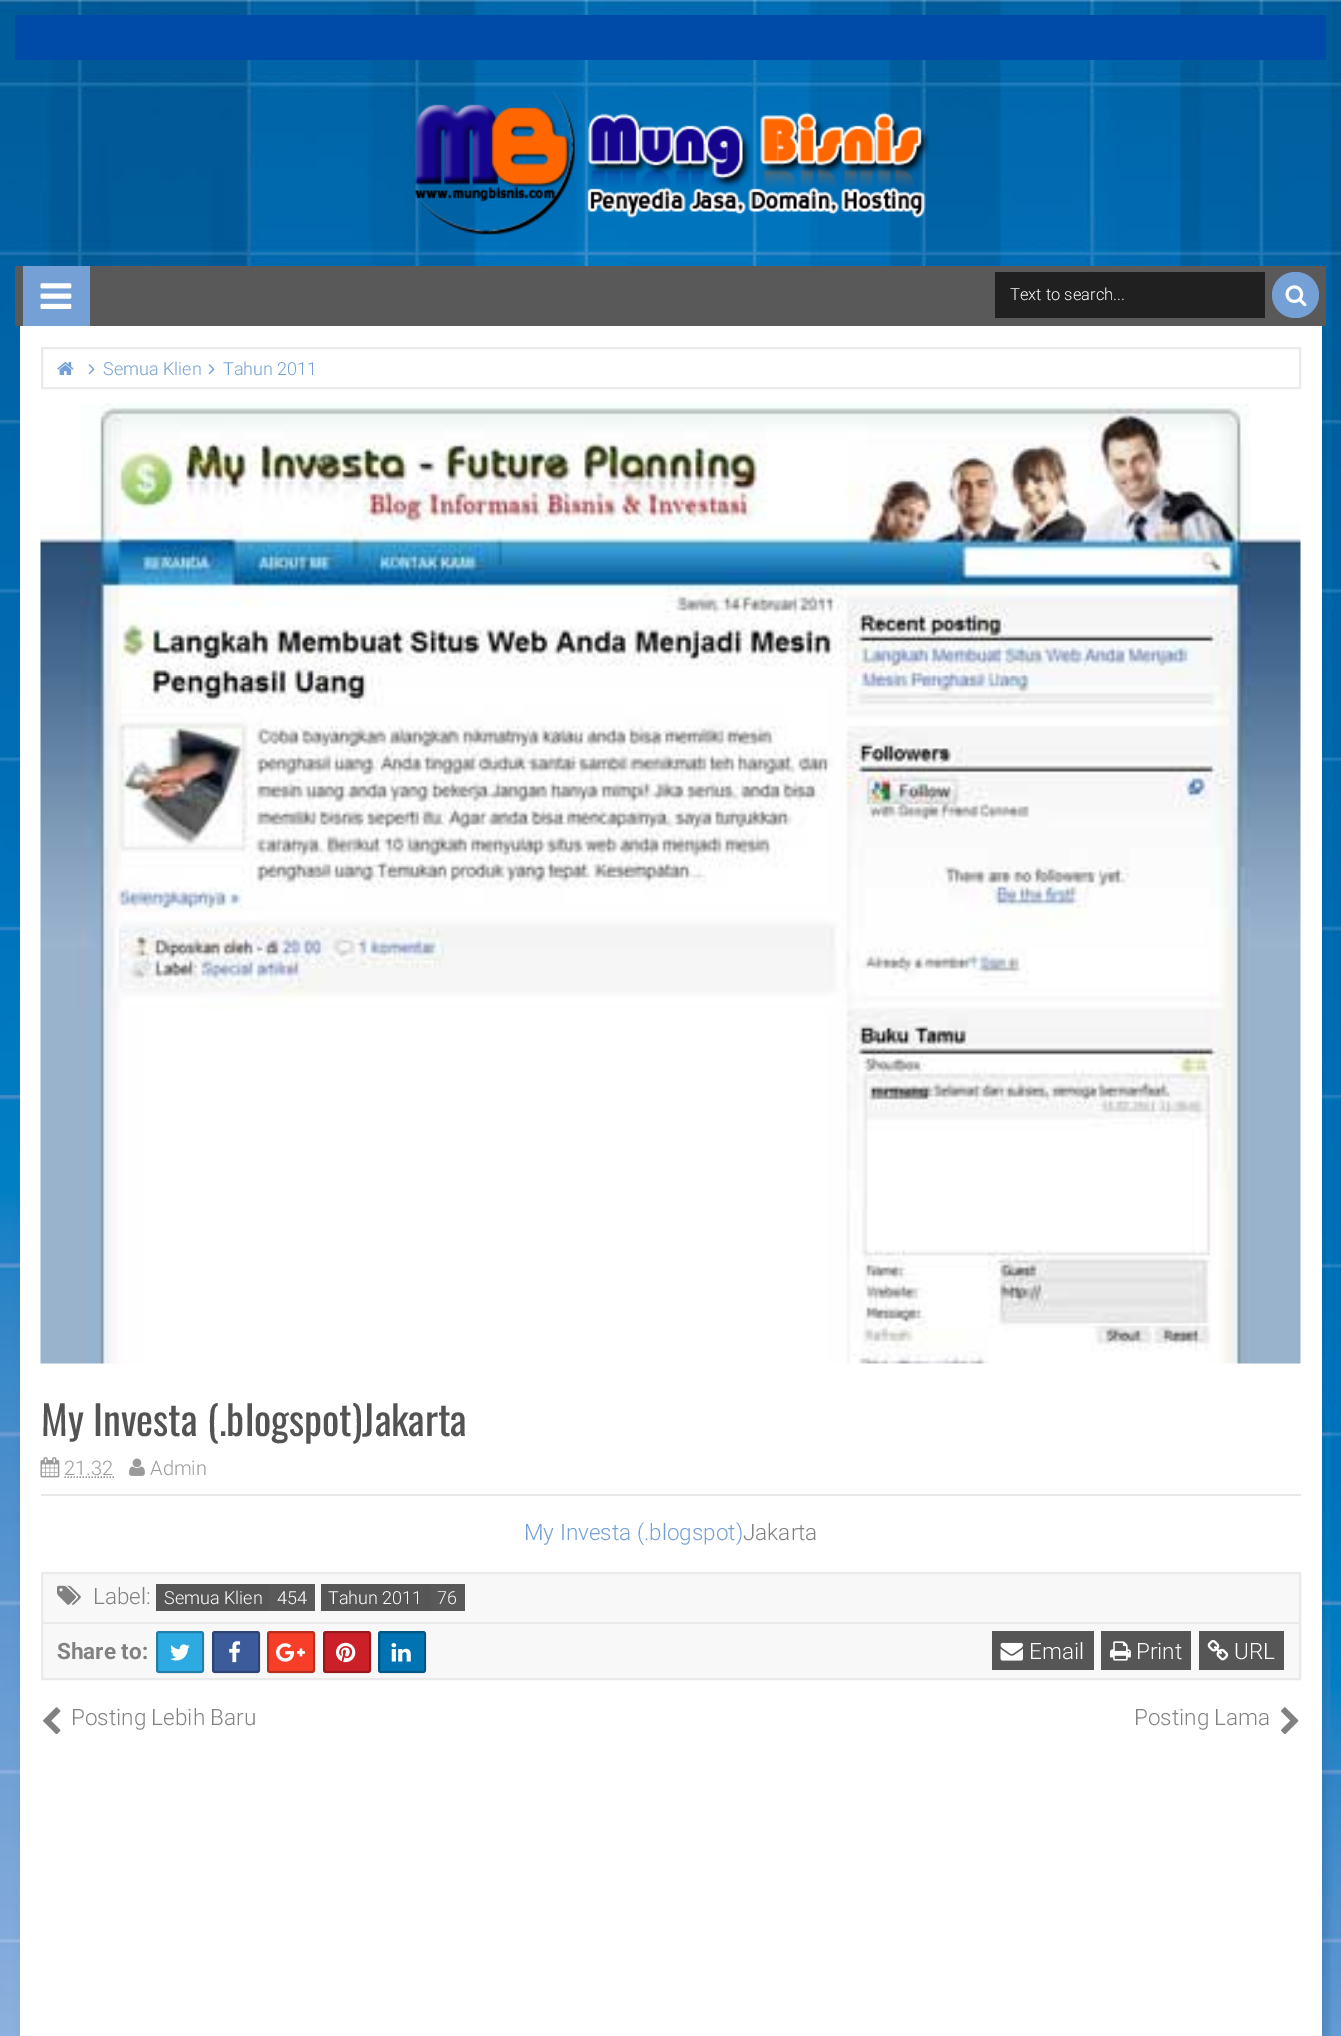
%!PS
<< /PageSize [1341 2036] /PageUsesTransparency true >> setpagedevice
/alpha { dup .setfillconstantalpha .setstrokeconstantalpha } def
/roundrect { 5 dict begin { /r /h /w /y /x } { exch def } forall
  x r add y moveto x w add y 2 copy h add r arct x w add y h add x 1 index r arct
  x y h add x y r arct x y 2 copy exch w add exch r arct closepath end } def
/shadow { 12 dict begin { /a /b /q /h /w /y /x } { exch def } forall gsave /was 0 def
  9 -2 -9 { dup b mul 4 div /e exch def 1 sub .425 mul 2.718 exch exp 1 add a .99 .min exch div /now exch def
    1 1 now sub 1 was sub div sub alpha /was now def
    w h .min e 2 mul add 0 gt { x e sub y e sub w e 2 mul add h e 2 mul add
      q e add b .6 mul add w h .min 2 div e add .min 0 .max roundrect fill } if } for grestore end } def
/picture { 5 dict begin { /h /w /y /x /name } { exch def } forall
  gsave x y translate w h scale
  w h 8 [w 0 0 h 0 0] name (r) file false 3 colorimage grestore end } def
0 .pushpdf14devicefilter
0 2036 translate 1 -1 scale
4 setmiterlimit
1 setgray
0 0 1341 2036 rectfill
(img1.rgb) 0 0 1341 2036 picture
0 0.294 0.659 setrgbcolor
15 15 1311 45 rectfill
(img2.rgb) 414 90 516 145 picture
0 setgray
23 330 1302 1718 0 4 0.1 shadow
0.349 setgray
15 266 1311 60 rectfill
0.459 0.627 0.835 setrgbcolor
23 266 67 60 rectfill
(img3.rgb) 40 283 32 26 picture
0.125 setgray
995 272 270 46 rectfill
/Roboto-Light [16.5 0 0 -16.5 0 0] selectfont
1 setgray
1010 300 moveto (Text to search...) show
0.459 0.627 0.835 setrgbcolor
1272 272 47 46 23 roundrect fill
(img4.rgb) 1285 285 22 22 picture
1 setgray
20 326 1302 1710 rectfill
0.918 setgray
2 setlinewidth
42 348 1258 40 rectstroke
(img5.rgb) 57 362 17 13 picture
(img6.rgb) 88 364 7 11 picture
/Roboto-Light [18 0 0 -18 0 0] selectfont
0.459 0.627 0.835 setrgbcolor
103 375 moveto (Semua Klien) show
(img6.rgb) 208 364 7 11 picture
223 375 moveto (Tahun 2011) show
(img7.rgb) 40 403 1261 961 picture
/Oswald-Regular [40.5 0 0 -40.5 0 0] selectfont
0.325 setgray
41 1436 moveto (My Investa \(.blogspot\)Jakarta) show
0.91 setgray
41 1494 1260 2 rectfill
(img8.rgb) 40 1457 20 21 picture
/Roboto-Light [20 0 0 -20 0 0] selectfont
0.604 setgray
64 1475 moveto (21.32) show
1.5 setlinewidth
[1.5 1.5] 0 setdash
newpath 64.5 1477 moveto 114 1477 lineto stroke
(img9.rgb) 129 1458 16 18 picture
150 1475 moveto (Admin) show
/Roboto-Light [22.5 0 0 -22.5 0 0] selectfont
0.459 0.627 0.835 setrgbcolor
524 1540 moveto (My Investa \(.blogspot\)) show
0.506 setgray
743 1540 moveto (Jakarta) show
0.973 setgray
newpath 42 1573 moveto 1300 1573 lineto 1300 1679 lineto 42 1679 lineto closepath gsave fill grestore
0.918 setgray
2 setlinewidth
[] 0 setdash
stroke
(img10.rgb) 57 1585 24 20 picture
0.506 setgray
93 1604 moveto (Label:) show
0.337 setgray
156 1584 114 27 rectfill
/Roboto-Light [18 0 0 -18 0 0] selectfont
1 setgray
164 1604 moveto (Semua Klien) show
0.349 setgray
270 1584 45 27 rectfill
1 setgray
277 1604 moveto (454) show
0.337 setgray
321 1584 110 27 rectfill
1 setgray
328 1604 moveto (Tahun 2011) show
0.349 setgray
431 1584 34 27 rectfill
1 setgray
437 1604 moveto (76) show
0.918 setgray
42 1622 1257 2 rectfill
/Roboto-Bold [22.5 0 0 -22.5 0 0] selectfont
0.506 setgray
57 1659 moveto (Share to:) show
0.176 0.667 0.882 setrgbcolor
156 1631 48 42 3 roundrect fill
0.25 alpha
0 setgray
157 1632 46 40 2 roundrect stroke
1 alpha
(img11.rgb) 170 1644 20 17 picture
0.235 0.357 0.608 setrgbcolor
212 1631 48 42 3 roundrect fill
0.25 alpha
0 setgray
213 1632 46 40 2 roundrect stroke
1 alpha
(img12.rgb) 229 1641 12 22 picture
0.965 0.243 0.157 setrgbcolor
267 1631 48 42 3 roundrect fill
0.25 alpha
0 setgray
268 1632 46 40 2 roundrect stroke
1 alpha
(img13.rgb) 276 1643 29 19 picture
0.796 0.125 0.153 setrgbcolor
323 1631 48 42 3 roundrect fill
0.25 alpha
0 setgray
324 1632 46 40 2 roundrect stroke
1 alpha
(img14.rgb) 336 1642 20 21 picture
0.004 0.451 0.698 setrgbcolor
378 1631 48 42 3 roundrect fill
0.25 alpha
0 setgray
379 1632 46 40 2 roundrect stroke
1 alpha
(img15.rgb) 391 1643 20 19 picture
0.337 setgray
992 1631 102 39 rectfill
(img16.rgb) 1000 1642 23 19 picture
/Roboto-Light [22.5 0 0 -22.5 0 0] selectfont
1 setgray
1029 1659 moveto (Email) show
0.337 setgray
1101 1631 90 39 rectfill
(img17.rgb) 1110 1641 21 20 picture
1 setgray
1136 1659 moveto (Print) show
0.337 setgray
1199 1631 85 39 rectfill
(img18.rgb) 1207 1639 22 22 picture
1 setgray
1234 1659 moveto (URL) show
(img19.rgb) 43 1707 18 27 picture
0.506 setgray
71 1725 moveto (Posting Lebih Baru) show
1134 1725 moveto (Posting Lama) show
(img20.rgb) 1281 1707 18 27 picture
.poppdf14devicefilter showpage
